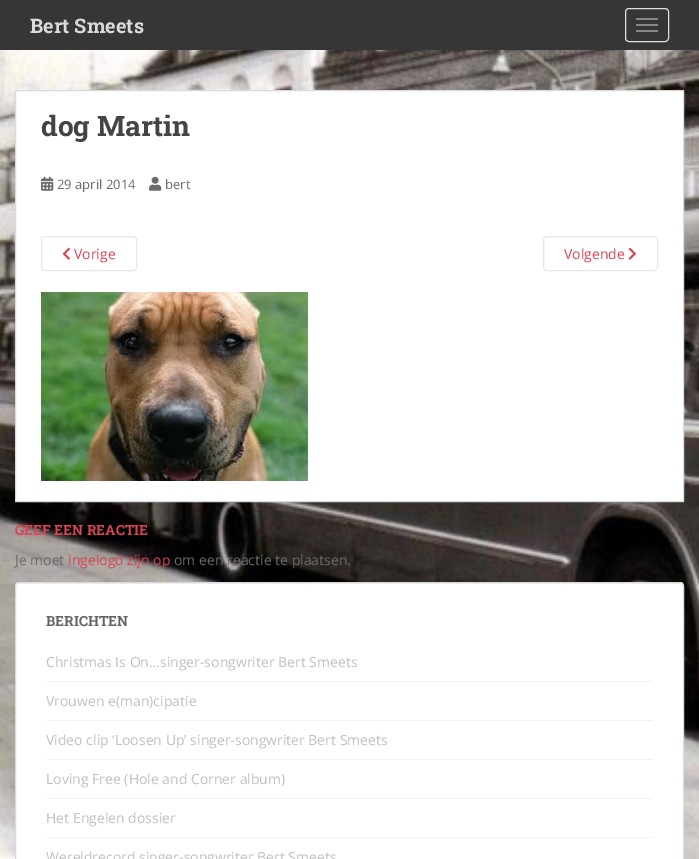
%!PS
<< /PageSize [699 859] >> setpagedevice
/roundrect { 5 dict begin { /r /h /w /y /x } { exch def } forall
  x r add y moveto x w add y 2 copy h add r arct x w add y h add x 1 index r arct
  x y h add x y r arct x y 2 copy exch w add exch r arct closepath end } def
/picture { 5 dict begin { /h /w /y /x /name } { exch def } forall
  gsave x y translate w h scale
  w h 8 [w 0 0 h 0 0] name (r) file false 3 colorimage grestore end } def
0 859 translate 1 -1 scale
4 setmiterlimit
1 setgray
0 0 699 859 rectfill
(img1.rgb) 0 50 699 809 picture
0.212 setgray
0 0 699 50 rectfill
/RobotoSlab-Bold [20 0 0 -20 0 0] selectfont
0.855 setgray
30 33 moveto (Bert Smeets) show
0.867 setgray
625.5 8.5 43 33 3.5 roundrect stroke
0.533 setgray
636 18 22 2 1 roundrect fill
636 24 22 2 1 roundrect fill
636 30 22 2 1 roundrect fill
1 setgray
newpath 15.5 90.5 moveto 683.5 90.5 lineto 683.5 501.5 lineto 15.5 501.5 lineto closepath gsave fill grestore
0.855 setgray
stroke
/RobotoSlab-Bold [28 0 0 -28 0 0] selectfont
0.267 setgray
41 136 moveto (dog Martin) show
(img2.rgb) 41 176 13 15 picture
/OpenSans-Regular [13 0 0 -13 0 0] selectfont
0.42 setgray
57 189 moveto (29 april 2014) show
(img3.rgb) 149 176 13 15 picture
165 189 moveto (bert) show
0.91 setgray
41.5 236.5 95 34 3.5 roundrect stroke
(img4.rgb) 62 247 8 13 picture
/OpenSans-Regular [14 0 0 -14 0 0] selectfont
0.855 0.267 0.325 setrgbcolor
74 259 moveto (Vorige) show
0.91 setgray
543.5 236.5 114 34 3.5 roundrect stroke
0.855 0.267 0.325 setrgbcolor
564 259 moveto (Volgende) show
(img5.rgb) 628 247 8 13 picture
(img6.rgb) 41 292 267 189 picture
/RobotoSlab-Bold [14 0 0 -14 0 0] selectfont
15 535 moveto (GEEF EEN REACTIE) show
/OpenSans-Regular [14 0 0 -14 0 0] selectfont
0.42 setgray
15 565 moveto (Je moet) show
0.855 0.267 0.325 setrgbcolor
68 565 moveto (ingelogd zijn op) show
0.42 setgray
174 565 moveto (om een reactie te plaatsen.) show
1 setgray
15 582 669 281 4 roundrect fill
0.949 setgray
newpath 19 584 moveto 680 584 lineto 682 584 683 585 683 587 curveto 683 586 lineto 683 584 682 583 680 583 curveto 19 583 lineto 17 583 16 584 16 586 curveto 16 587 lineto 16 585 17 584 19 584 curveto closepath fill
0.855 setgray
15.5 582.5 668 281 3.5 roundrect stroke
/RobotoSlab-Bold [14 0 0 -14 0 0] selectfont
0.388 0.392 0.404 setrgbcolor
46 626 moveto (BERICHTEN) show
0.949 setgray
46 681 607 1 rectfill
/OpenSans-Regular [14 0 0 -14 0 0] selectfont
0.757 0.753 0.753 setrgbcolor
46 667 moveto (Christmas Is On…singer-songwriter Bert Smeets) show
0.949 setgray
46 720 607 1 rectfill
0.757 0.753 0.753 setrgbcolor
46 706 moveto (Vrouwen e\(man\)cipatie) show
0.949 setgray
46 759 607 1 rectfill
0.757 0.753 0.753 setrgbcolor
46 745 moveto (Video clip ‘Loosen Up’ singer-songwriter Bert Smeets) show
0.949 setgray
46 798 607 1 rectfill
0.757 0.753 0.753 setrgbcolor
46 784 moveto (Loving Free \(Hole and Corner album\)) show
0.949 setgray
46 837 607 1 rectfill
0.757 0.753 0.753 setrgbcolor
46 823 moveto (Het Engelen dossier) show
46 862 moveto (Wereldrecord singer-songwriter Bert Smeets) show
showpage
